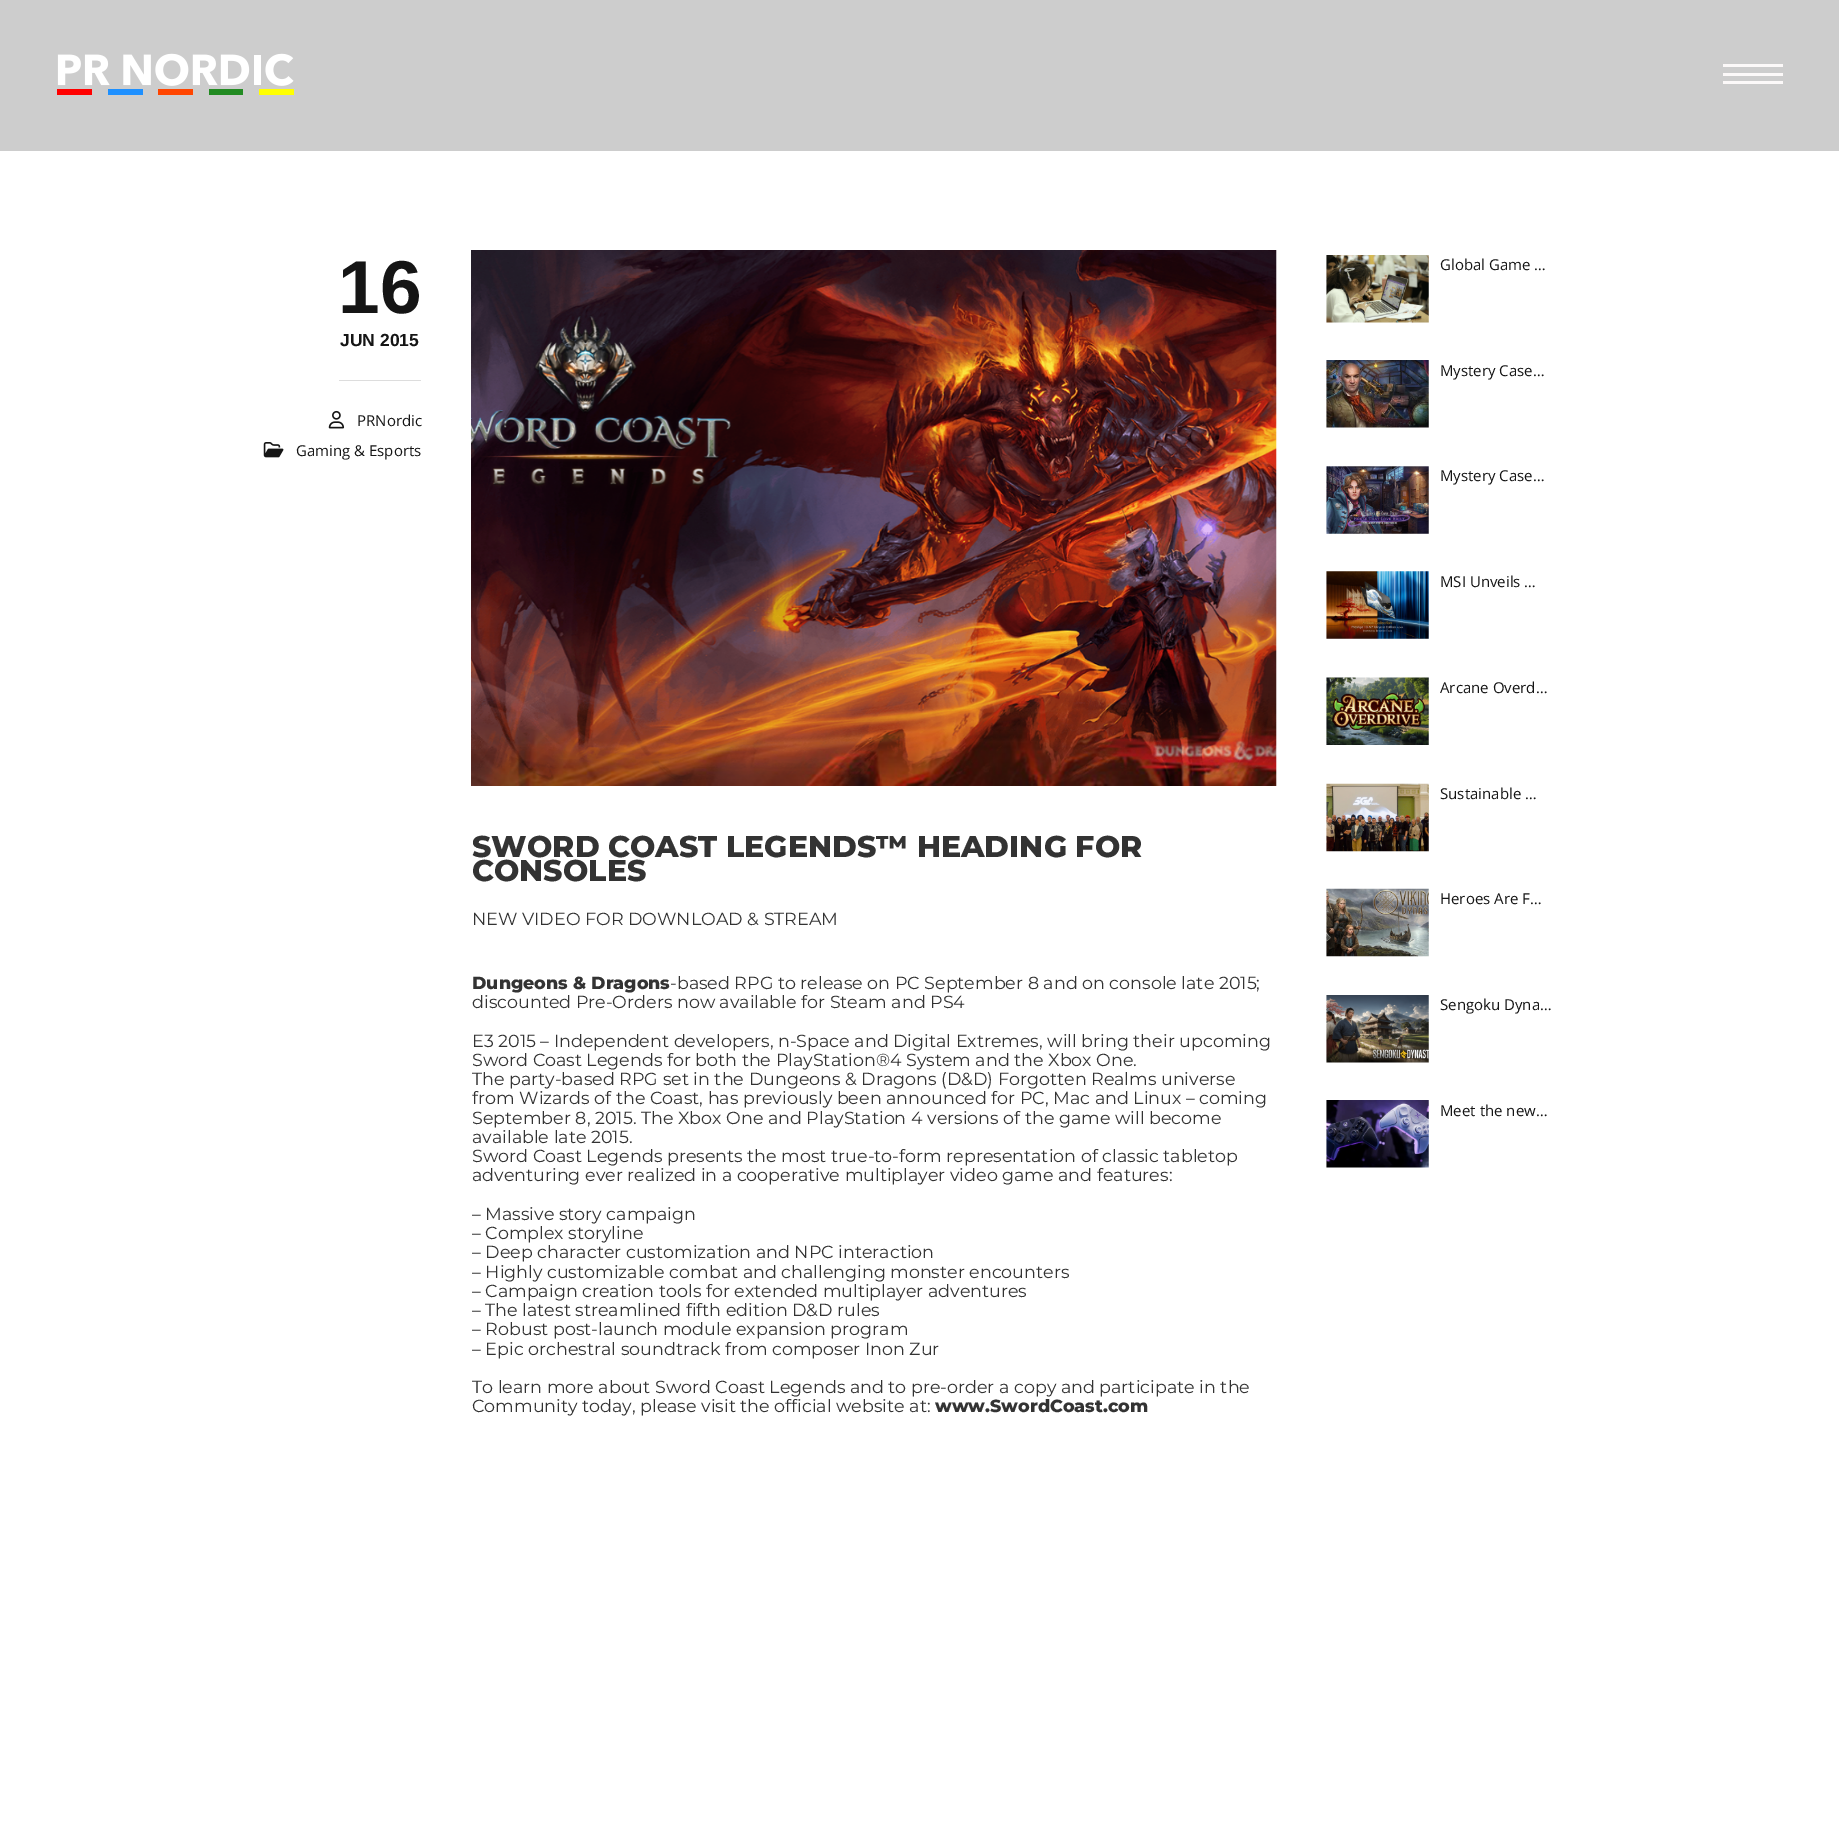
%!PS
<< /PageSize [1839 1843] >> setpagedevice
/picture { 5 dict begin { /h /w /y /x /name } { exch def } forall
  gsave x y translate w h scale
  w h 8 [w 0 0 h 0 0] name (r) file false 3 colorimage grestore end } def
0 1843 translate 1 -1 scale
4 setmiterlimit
1 setgray
0 0 1839 1843 rectfill
0.804 setgray
0 0 1839 151 rectfill
(img1.rgb) 57 53 237 42 picture
0.988 0.976 0.976 setrgbcolor
1723 73 60 3 rectfill
1723 64 60 3 rectfill
1723 81 60 3 rectfill
0.867 setgray
339 380 82 1 rectfill
/LiberationSans-Bold [75 0 0 -75 0 0] selectfont
0.082 setgray
338 313 moveto (16) show
/LiberationSans-Bold [17.5 0 0 -17.5 0 0] selectfont
340 346 moveto (JUN 2015) show
(img2.rgb) 328 410 17 19 picture
/OpenSans-Regular [15 0 0 -15 0 0] selectfont
357 426 moveto (PRNordic) show
(img3.rgb) 263 442 21 16 picture
296 456 moveto (Gaming & Esports) show
(img4.rgb) 471 250 806 536 picture
/Montserrat-ExtraBold [30 0 0 -30 0 0] selectfont
0.2 setgray
472 857 moveto (SWORD COAST LEGENDS™ HEADING FOR) show
472 881 moveto (CONSOLES) show
/Montserrat-Regular [17.5 0 0 -17.5 0 0] selectfont
472 925 moveto (NEW VIDEO FOR DOWNLOAD & STREAM) show
/Montserrat-ExtraBold [17.5 0 0 -17.5 0 0] selectfont
472 989 moveto (Dungeons & Dragons) show
/Montserrat-Regular [17.5 0 0 -17.5 0 0] selectfont
670 989 moveto (-based RPG to release on PC September 8 and on console late 2015;) show
472 1008 moveto (discounted Pre-Orders now available for Steam and PS4) show
472 1047 moveto (E3 2015 – Independent developers, n-Space and Digital Extremes, will bring their upcoming) show
472 1066 moveto (Sword Coast Legends for both the PlayStation®4 System and the Xbox One.) show
472 1085 moveto (The party-based RPG set in the Dungeons & Dragons \(D&D\) Forgotten Realms universe) show
472 1104 moveto (from Wizards of the Coast, has previously been announced for PC, Mac and Linux – coming) show
472 1124 moveto (September 8, 2015. The Xbox One and PlayStation 4 versions of the game will become) show
472 1143 moveto (available late 2015.) show
472 1162 moveto (Sword Coast Legends presents the most true-to-form representation of classic tabletop) show
472 1181 moveto (adventuring ever realized in a cooperative multiplayer video game and features:) show
472 1220 moveto (– Massive story campaign) show
472 1239 moveto (– Complex storyline) show
472 1258 moveto (– Deep character customization and NPC interaction) show
472 1278 moveto (– Highly customizable combat and challenging monster encounters) show
472 1297 moveto (– Campaign creation tools for extended multiplayer adventures) show
472 1316 moveto (– The latest streamlined fifth edition D&D rules) show
472 1335 moveto (– Robust post-launch module expansion program) show
472 1355 moveto (– Epic orchestral soundtrack from composer Inon Zur) show
472 1393 moveto (To learn more about Sword Coast Legends and to pre-order a copy and participate in the) show
472 1412 moveto (Community today, please visit the official website at:) show
/Montserrat-ExtraBold [17.5 0 0 -17.5 0 0] selectfont
935 1412 moveto (www.SwordCoast.com) show
(img5.rgb) 1326 255 103 68 picture
/OpenSans-Regular [15 0 0 -15 0 0] selectfont
0.082 setgray
1440 270 moveto (Global Game …) show
(img6.rgb) 1326 360 103 68 picture
1440 376 moveto (Mystery Case…) show
(img7.rgb) 1326 466 103 68 picture
1440 481 moveto (Mystery Case…) show
(img8.rgb) 1326 571 103 68 picture
1440 587 moveto (MSI Unveils …) show
(img9.rgb) 1326 677 103 68 picture
1440 693 moveto (Arcane Overd…) show
(img10.rgb) 1326 783 103 69 picture
1440 799 moveto (Sustainable …) show
(img11.rgb) 1326 888 103 69 picture
1440 904 moveto (Heroes Are F…) show
(img12.rgb) 1326 995 103 68 picture
1440 1010 moveto (Sengoku Dyna…) show
(img13.rgb) 1326 1100 103 68 picture
1440 1116 moveto (Meet the new…) show
showpage
